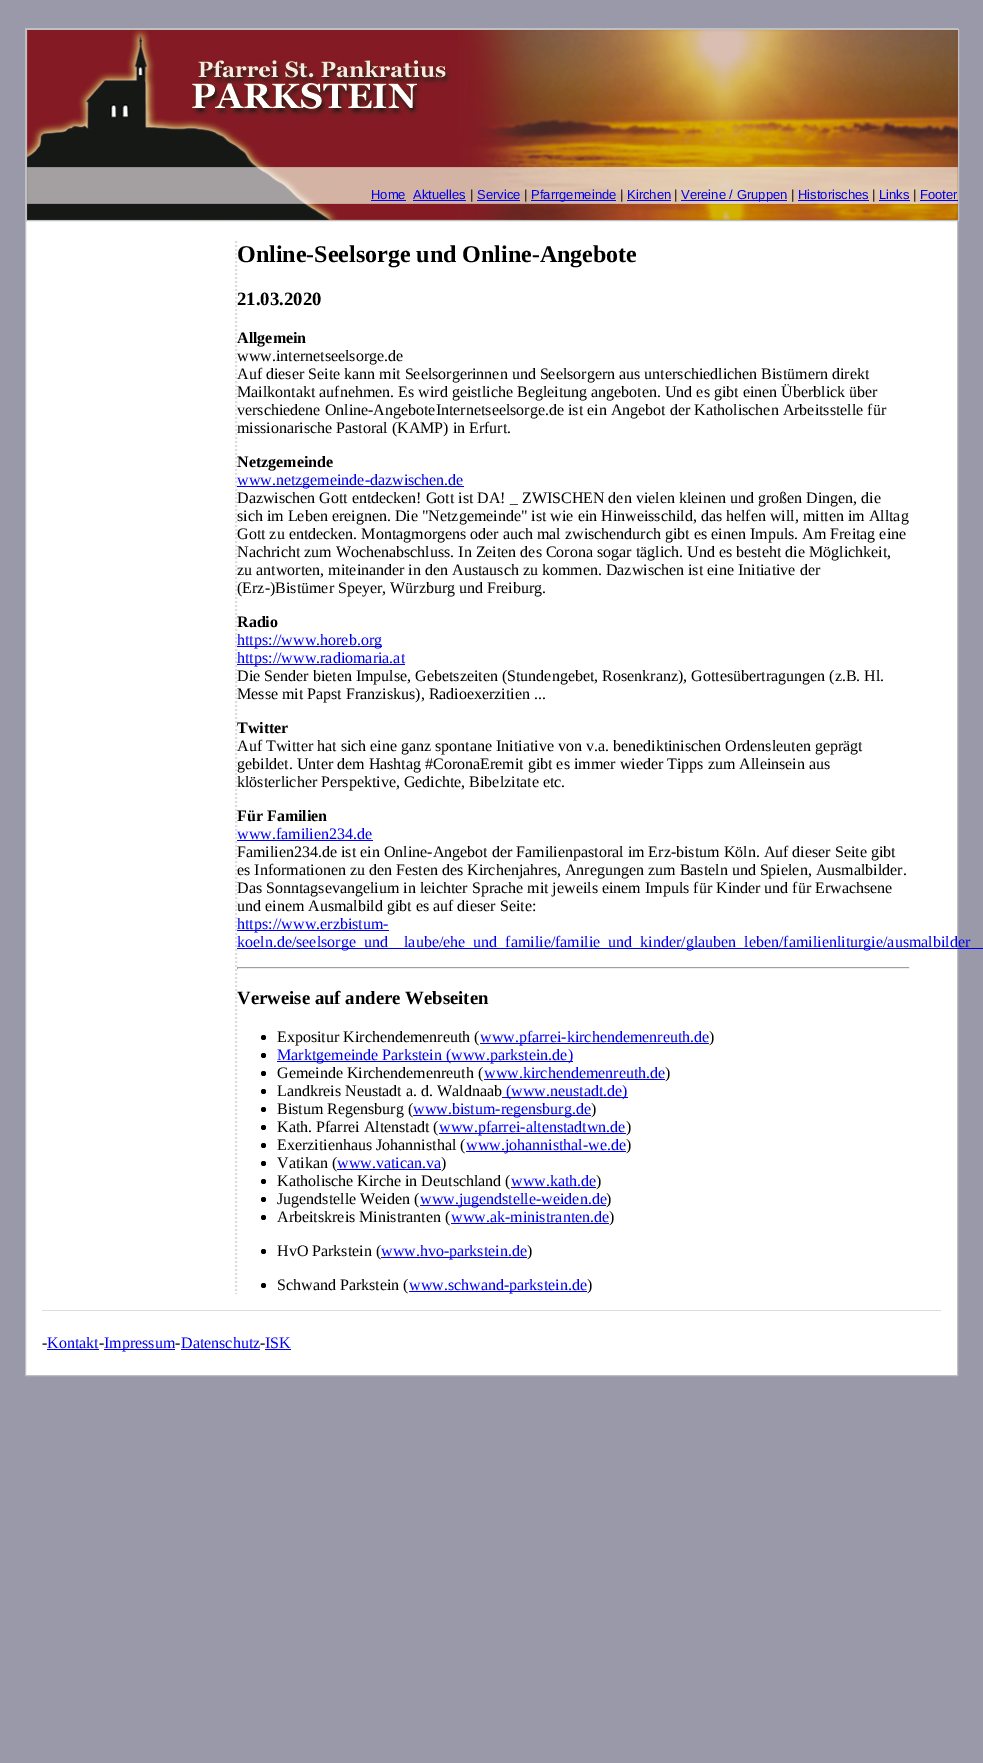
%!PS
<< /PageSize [983 1763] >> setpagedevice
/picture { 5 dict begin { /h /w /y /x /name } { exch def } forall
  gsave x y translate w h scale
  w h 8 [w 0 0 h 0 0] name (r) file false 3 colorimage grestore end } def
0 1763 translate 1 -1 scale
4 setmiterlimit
0.6 0.6 0.667 setrgbcolor
0 0 983 1763 rectfill
1 setgray
26 221 931 1154 rectfill
0.753 setgray
25.5 28.5 932 1347 rectstroke
26.5 29.5 932 191 rectstroke
(img1.rgb) 27 30 431 190 picture
(img2.rgb) 458 30 500 190 picture
/LiberationSans-Regular [13 0 0 -13 0 0] selectfont
0 0 0.933 setrgbcolor
371 199 moveto (Home) show
371 200 35 1 rectfill
413 199 moveto (Aktuelles) show
413 200 53 1 rectfill
0 setgray
470 199 moveto (|) show
0 0 0.933 setrgbcolor
477 199 moveto (Service) show
477 200 43 1 rectfill
0 setgray
524 199 moveto (|) show
0 0 0.933 setrgbcolor
531 200 85 1 rectfill
531 199 moveto (Pfarrgemeinde) show
0 setgray
620 199 moveto (|) show
0 0 0.933 setrgbcolor
627 199 moveto (Kirchen) show
627 200 44 1 rectfill
0 setgray
674 199 moveto (|) show
0 0 0.933 setrgbcolor
681 200 106 1 rectfill
681 199 moveto (Vereine / Gruppen) show
0 setgray
791 199 moveto (|) show
0 0 0.933 setrgbcolor
798 199 moveto (Historisches) show
798 200 71 1 rectfill
0 setgray
872 199 moveto (|) show
0 0 0.933 setrgbcolor
879 199 moveto (Links) show
879 200 31 1 rectfill
0 setgray
913 199 moveto (|) show
0 0 0.933 setrgbcolor
920 199 moveto (Footer) show
920 200 38 1 rectfill
0.867 setgray
2 setlinewidth
[2 2] 0 setdash
newpath 236 241 moveto 236 1294 lineto stroke
/LiberationSerif-Bold [24 0 0 -24 0 0] selectfont
0 setgray
237 262 moveto (Online-Seelsorge und Online-Angebote) show
/LiberationSerif-Bold [18.75 0 0 -18.75 0 0] selectfont
237 305 moveto (21.03.2020) show
/LiberationSerif-Bold [16 0 0 -16 0 0] selectfont
237 343 moveto (Allgemein) show
/LiberationSerif-Regular [16 0 0 -16 0 0] selectfont
237 361 moveto (www.internetseelsorge.de) show
237 379 moveto (Auf dieser Seite kann mit Seelsorgerinnen und Seelsorgern aus unterschiedlichen Bistümern direkt) show
237 397 moveto (Mailkontakt aufnehmen. Es wird geistliche Begleitung angeboten. Und es gibt einen Überblick über) show
237 415 moveto (verschiedene Online-AngeboteInternetseelsorge.de ist ein Angebot der Katholischen Arbeitsstelle für) show
237 433 moveto (missionarische Pastoral \(KAMP\) in Erfurt.) show
/LiberationSerif-Bold [16 0 0 -16 0 0] selectfont
237 467 moveto (Netzgemeinde) show
0 0 0.933 setrgbcolor
237 486 227 1 rectfill
/LiberationSerif-Regular [16 0 0 -16 0 0] selectfont
237 485 moveto (www.netzgemeinde-dazwischen.de) show
0 setgray
237 503 moveto (Dazwischen Gott entdecken! Gott ist DA! _ ZWISCHEN den vielen kleinen und großen Dingen, die) show
237 521 moveto (sich im Leben ereignen. Die "Netzgemeinde" ist wie ein Hinweisschild, das helfen will, mitten im Alltag) show
237 539 moveto (Gott zu entdecken. Montagmorgens oder auch mal zwischendurch gibt es einen Impuls. Am Freitag eine) show
237 557 moveto (Nachricht zum Wochenabschluss. In Zeiten des Corona sogar täglich. Und es besteht die Möglichkeit,) show
237 575 moveto (zu antworten, miteinander in den Austausch zu kommen. Dazwischen ist eine Initiative der) show
237 593 moveto (\(Erz-\)Bistümer Speyer, Würzburg und Freiburg.) show
/LiberationSerif-Bold [16 0 0 -16 0 0] selectfont
237 627 moveto (Radio) show
0 0 0.933 setrgbcolor
237 646 145 1 rectfill
/LiberationSerif-Regular [16 0 0 -16 0 0] selectfont
237 645 moveto (https://www.horeb.org) show
237 664 168 1 rectfill
237 663 moveto (https://www.radiomaria.at) show
0 setgray
237 681 moveto (Die Sender bieten Impulse, Gebetszeiten \(Stundengebet, Rosenkranz\), Gottesübertragungen \(z.B. Hl.) show
237 699 moveto (Messe mit Papst Franziskus\), Radioexerzitien ...) show
/LiberationSerif-Bold [16 0 0 -16 0 0] selectfont
237 733 moveto (Twitter) show
/LiberationSerif-Regular [16 0 0 -16 0 0] selectfont
237 751 moveto (Auf Twitter hat sich eine ganz spontane Initiative von v.a. benediktinischen Ordensleuten geprägt) show
237 769 moveto (gebildet. Unter dem Hashtag #CoronaEremit gibt es immer wieder Tipps zum Alleinsein aus) show
237 787 moveto (klösterlicher Perspektive, Gedichte, Bibelzitate etc.) show
/LiberationSerif-Bold [16 0 0 -16 0 0] selectfont
237 821 moveto (Für Familien) show
/LiberationSerif-Regular [16 0 0 -16 0 0] selectfont
0 0 0.933 setrgbcolor
237 839 moveto (www.familien234.de) show
237 840 136 1 rectfill
0 setgray
237 857 moveto (Familien234.de ist ein Online-Angebot der Familienpastoral im Erz-bistum Köln. Auf dieser Seite gibt) show
237 875 moveto (es Informationen zu den Festen des Kirchenjahres, Anregungen zum Basteln und Spielen, Ausmalbilder.) show
237 893 moveto (Das Sonntagsevangelium in leichter Sprache mit jeweils einem Impuls für Kinder und für Erwachsene) show
237 911 moveto (und einem Ausmalbild gibt es auf dieser Seite:) show
0 0 0.933 setrgbcolor
237 930 152 1 rectfill
237 929 moveto (https://www.erzbistum-) show
237 948 746 1 rectfill
237 947 moveto (koeln.de/seelsorge_und) show
404 947 moveto (laube/ehe_und_familie/familie_und_kinder/glauben_leben/familienliturgie/ausmalbilder) show
0.624 setgray
237 967 673 1 rectfill
0.933 setgray
909 967 1 2 rectfill
237 968 673 1 rectfill
0.624 setgray
237 967 1 2 rectfill
/LiberationSerif-Bold [18.75 0 0 -18.75 0 0] selectfont
0 setgray
237 1004 moveto (Verweise auf andere Webseiten) show
newpath 263.5 1037.5 2.5 0 360 arc closepath fill
/LiberationSerif-Regular [16 0 0 -16 0 0] selectfont
277 1042 moveto (Expositur Kirchendemenreuth \() show
0 0 0.933 setrgbcolor
480 1043 229 1 rectfill
480 1042 moveto (www.pfarrei-kirchendemenreuth.de) show
0 setgray
709 1042 moveto (\)) show
newpath 263.5 1055.5 2.5 0 360 arc closepath fill
0 0 0.933 setrgbcolor
277 1061 296 1 rectfill
277 1060 moveto (Marktgemeinde Parkstein \(www.parkstein.de\)) show
0 setgray
newpath 263.5 1073.5 2.5 0 360 arc closepath fill
277 1078 moveto (Gemeinde Kirchendemenreuth \() show
0 0 0.933 setrgbcolor
484 1078 moveto (www.kirchendemenreuth.de) show
484 1079 181 1 rectfill
0 setgray
665 1078 moveto (\)) show
newpath 263.5 1091.5 2.5 0 360 arc closepath fill
277 1096 moveto (Landkreis Neustadt a. d. Waldnaab) show
0 0 0.933 setrgbcolor
502 1097 126 1 rectfill
506 1096 moveto (\(www.neustadt.de\)) show
0 setgray
newpath 263.5 1109.5 2.5 0 360 arc closepath fill
277 1114 moveto (Bistum Regensburg \() show
0 0 0.933 setrgbcolor
413 1115 178 1 rectfill
413 1114 moveto (www.bistum-regensburg.de) show
0 setgray
591 1114 moveto (\)) show
newpath 263.5 1127.5 2.5 0 360 arc closepath fill
277 1132 moveto (Kath. Pfarrei Altenstadt \() show
0 0 0.933 setrgbcolor
439 1133 187 1 rectfill
439 1132 moveto (www.pfarrei-altenstadtwn.de) show
0 setgray
626 1132 moveto (\)) show
newpath 263.5 1145.5 2.5 0 360 arc closepath fill
277 1150 moveto (Exerzitienhaus Johannisthal \() show
0 0 0.933 setrgbcolor
466 1151 160 1 rectfill
466 1150 moveto (www.johannisthal-we.de) show
0 setgray
626 1150 moveto (\)) show
newpath 263.5 1163.5 2.5 0 360 arc closepath fill
277 1168 moveto (Vatikan \() show
0 0 0.933 setrgbcolor
337 1168 moveto (www.vatican.va) show
337 1169 104 1 rectfill
0 setgray
441 1168 moveto (\)) show
newpath 263.5 1181.5 2.5 0 360 arc closepath fill
277 1186 moveto (Katholische Kirche in Deutschland \() show
0 0 0.933 setrgbcolor
511 1186 moveto (www.kath.de) show
511 1187 85 1 rectfill
0 setgray
596 1186 moveto (\)) show
newpath 263.5 1199.5 2.5 0 360 arc closepath fill
277 1204 moveto (Jugendstelle Weiden \() show
0 0 0.933 setrgbcolor
420 1205 186 1 rectfill
420 1204 moveto (www.jugendstelle-weiden.de) show
0 setgray
606 1204 moveto (\)) show
newpath 263.5 1217.5 2.5 0 360 arc closepath fill
277 1222 moveto (Arbeitskreis Ministranten \() show
0 0 0.933 setrgbcolor
451 1222 moveto (www.ak-ministranten.de) show
451 1223 158 1 rectfill
0 setgray
609 1222 moveto (\)) show
newpath 263.5 1251.5 2.5 0 360 arc closepath fill
277 1256 moveto (HvO Parkstein \() show
0 0 0.933 setrgbcolor
381 1257 146 1 rectfill
381 1256 moveto (www.hvo-parkstein.de) show
0 setgray
527 1256 moveto (\)) show
newpath 263.5 1285.5 2.5 0 360 arc closepath fill
277 1290 moveto (Schwand Parkstein \() show
0 0 0.933 setrgbcolor
409 1291 178 1 rectfill
409 1290 moveto (www.schwand-parkstein.de) show
0 setgray
587 1290 moveto (\)) show
0.867 setgray
42 1310 899 1 rectfill
0 setgray
42 1348 moveto (-) show
0 0 0.933 setrgbcolor
47 1348 moveto (Kontakt) show
47 1349 52 1 rectfill
0 setgray
99 1348 moveto (-) show
0 0 0.933 setrgbcolor
104 1349 71 1 rectfill
104 1348 moveto (Impressum) show
0 setgray
175 1348 moveto (-) show
0 0 0.933 setrgbcolor
181 1348 moveto (Datenschutz) show
181 1349 79 1 rectfill
0 setgray
260 1348 moveto (-) show
0 0 0.933 setrgbcolor
265 1348 moveto (ISK) show
265 1349 26 1 rectfill
showpage
